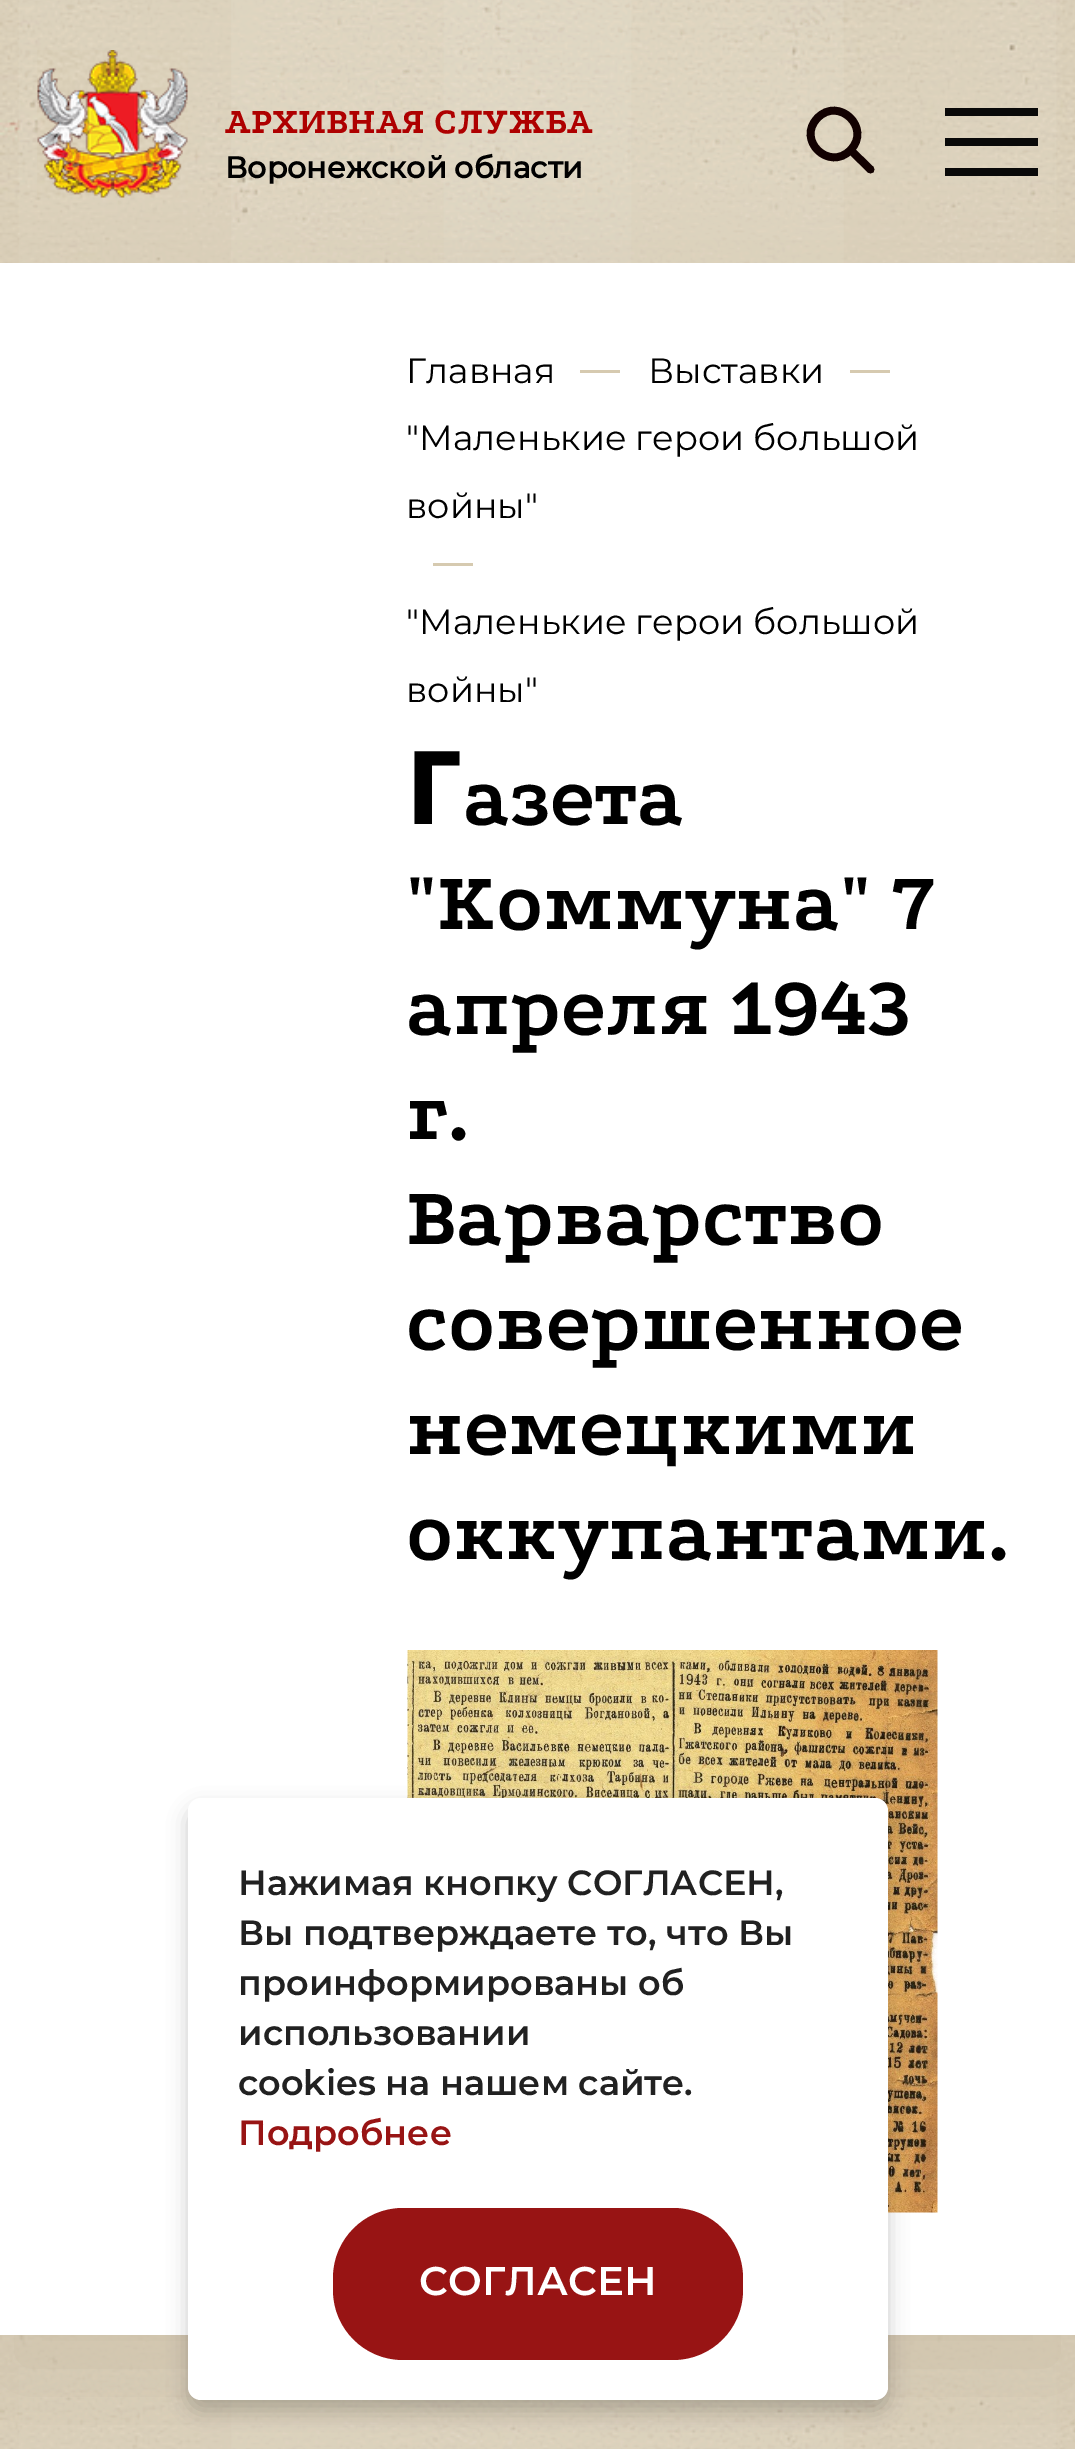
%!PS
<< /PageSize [1075 2449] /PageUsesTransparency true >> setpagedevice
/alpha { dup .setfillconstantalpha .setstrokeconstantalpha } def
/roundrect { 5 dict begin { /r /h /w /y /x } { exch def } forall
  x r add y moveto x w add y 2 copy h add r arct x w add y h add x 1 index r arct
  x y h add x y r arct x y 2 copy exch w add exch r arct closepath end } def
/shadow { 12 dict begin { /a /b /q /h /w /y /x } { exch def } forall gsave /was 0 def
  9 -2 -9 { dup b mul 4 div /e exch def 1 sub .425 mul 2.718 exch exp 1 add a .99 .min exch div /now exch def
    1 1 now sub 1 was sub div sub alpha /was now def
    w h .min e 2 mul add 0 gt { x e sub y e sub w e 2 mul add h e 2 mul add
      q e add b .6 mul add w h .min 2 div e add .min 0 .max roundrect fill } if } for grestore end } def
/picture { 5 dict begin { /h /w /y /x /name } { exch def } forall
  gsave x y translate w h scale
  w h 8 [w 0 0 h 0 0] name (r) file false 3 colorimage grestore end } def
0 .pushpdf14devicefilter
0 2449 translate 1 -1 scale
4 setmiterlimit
1 setgray
0 0 1075 2449 rectfill
(img1.rgb) 0 0 1075 2449 picture
0.937 0.922 0.875 setrgbcolor
125 -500 825 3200 0 425 0.4 shadow
0.808 0.761 0.671 setrgbcolor
0 310 1075 2073 0 56 1 shadow
(img2.rgb) 37 50 151 148 picture
/Podkova-Bold [37.5 0 0 -37.5 0 0] selectfont
0.682 0 0 setrgbcolor
225 133 moveto (АРХИВНАЯ СЛУЖБА) show
/Montserrat-Bold [30 0 0 -30 0 0] selectfont
0 setgray
225 178 moveto (Воронежской области) show
0.071 0.004 0.004 setrgbcolor
7.8 setlinewidth
1 setlinecap
newpath 850.5 150 moveto 872 128 838.5 96 817.5 118 curveto 796 140 829.5 172 850.5 150 curveto closepath 850.5 150 moveto 870.5 169.5 lineto stroke
0.035 setgray
945 108 93 8 rectfill
945 138 93 8 rectfill
945 168 93 8 rectfill
1 setgray
0 263 1075 2072 rectfill
/Montserrat-Regular [35 0 0 -35 0 0] selectfont
0 setgray
406 383 moveto (Главная) show
0.839 0.792 0.69 setrgbcolor
580 370 40 3 rectfill
0 setgray
648 383 moveto (Выставки) show
0.839 0.792 0.69 setrgbcolor
850 370 40 3 rectfill
0 setgray
406 450 moveto ("Маленькие герои большой) show
406 518 moveto (войны") show
0.839 0.792 0.69 setrgbcolor
433 563 40 3 rectfill
0 setgray
406 634 moveto ("Маленькие герои большой) show
406 702 moveto (войны") show
/NotoSans-ExtraBold [102 0 0 -102 0 0] selectfont
406 824 moveto (Г) show
/Podkova-Bold [85 0 0 -85 0 0] selectfont
463 824 moveto (азета) show
406 929 moveto ("Коммуна" 7) show
406 1034 moveto (апреля 1943) show
406 1139 moveto (г.) show
406 1244 moveto (Варварство) show
406 1349 moveto (совершенное) show
406 1454 moveto (немецкими) show
406 1559 moveto (оккупантами.) show
(img3.rgb) 407 1650 531 563 picture
188 1808 700 602 13 10 0.2 shadow
1 setgray
188 1798 700 602 13 roundrect fill
/Montserrat-SemiBold [35 0 0 -35 0 0] selectfont
0.129 setgray
238 1895 moveto (Нажимая кнопку СОГЛАСЕН,) show
238 1945 moveto (Вы подтверждаете то, что Вы) show
238 1995 moveto (проинформированы об) show
238 2045 moveto (использовании) show
238 2095 moveto (cookies на нашем сайте.) show
0.596 0.078 0.078 setrgbcolor
238 2145 moveto (Подробнее) show
333 2208 410 152 70 roundrect fill
/Montserrat-SemiBold [40 0 0 -40 0 0] selectfont
1 setgray
419 2295 moveto (СОГЛАСЕН) show
.poppdf14devicefilter showpage
